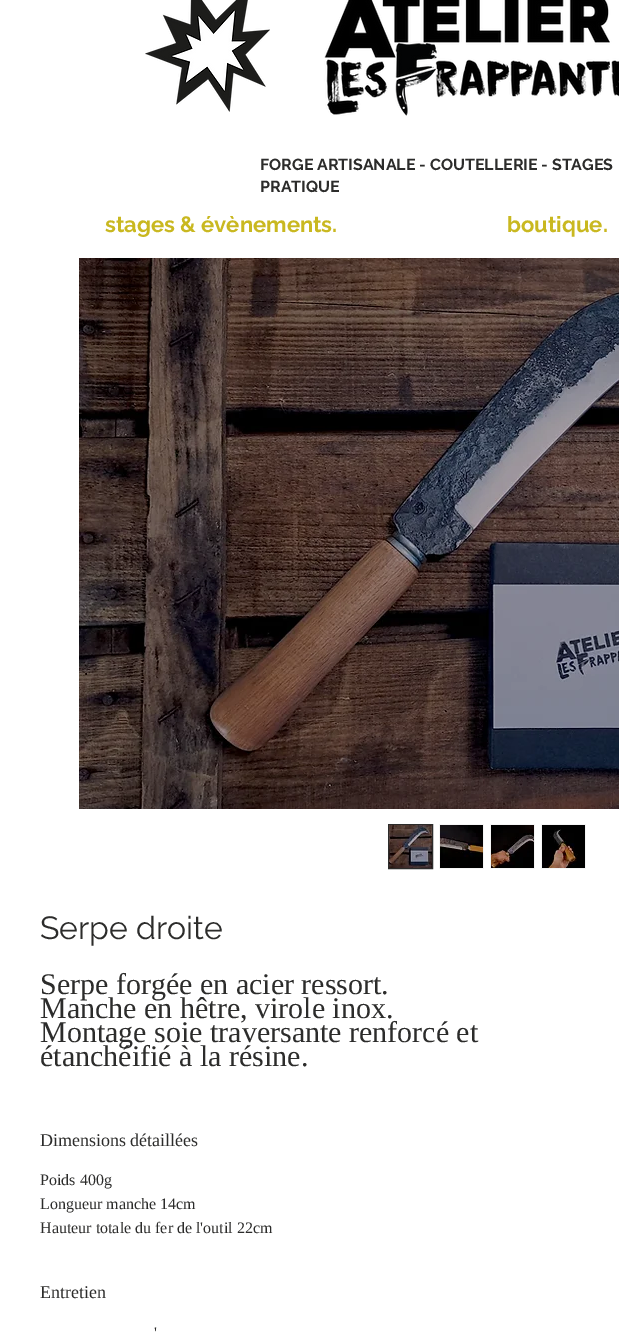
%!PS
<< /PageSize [619 1335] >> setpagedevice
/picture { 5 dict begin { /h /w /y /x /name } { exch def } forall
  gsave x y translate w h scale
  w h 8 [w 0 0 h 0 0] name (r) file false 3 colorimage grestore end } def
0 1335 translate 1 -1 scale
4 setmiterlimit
1 setgray
0 0 619 1335 rectfill
(img1.rgb) 145 0 125 112 picture
(img2.rgb) 324 0 295 116 picture
/Raleway-Bold [16 0 0 -16 0 0] selectfont
0.173 0.173 0.169 setrgbcolor
260 170 moveto (FORGE ARTISANALE - COUTELLERIE - STAGES) show
260 192 moveto (PRATIQUE) show
/Raleway-Bold [22 0 0 -22 0 0] selectfont
0.788 0.722 0.125 setrgbcolor
105 232 moveto (stages & évènements.) show
507 232 moveto (boutique.) show
(img3.rgb) 79 258 540 551 picture
0.173 0.173 0.169 setrgbcolor
388.5 824.5 44 44 rectstroke
(img4.rgb) 389 825 43 43 picture
0.961 setgray
439 824 45 45 rectfill
(img5.rgb) 440 825 43 43 picture
490 824 45 45 rectfill
(img6.rgb) 491 825 43 43 picture
541 824 45 45 rectfill
(img7.rgb) 542 825 43 43 picture
/Raleway-Regular [32 0 0 -32 0 0] selectfont
0.173 0.173 0.169 setrgbcolor
40 939 moveto (Serpe droite) show
/LiberationSerif-Regular [30 0 0 -30 0 0] selectfont
40 994 moveto (Serpe forgée en acier ressort.) show
40 1018 moveto (Manche en hêtre, virole inox.) show
40 1042 moveto (Montage soie traversante renforcé et) show
40 1066 moveto (étanchéifié à la résine.) show
/LiberationSerif-Regular [18 0 0 -18 0 0] selectfont
40 1146 moveto (Dimensions détaillées) show
/LiberationSerif-Regular [16 0 0 -16 0 0] selectfont
40 1185 moveto (Poids 400g) show
40 1209 moveto (Longueur manche 14cm) show
40 1233 moveto (Hauteur totale du fer de l'outil 22cm) show
/LiberationSerif-Regular [18 0 0 -18 0 0] selectfont
40 1298 moveto (Entretien) show
/LiberationSerif-Regular [16 0 0 -16 0 0] selectfont
154 1338 moveto (') show
showpage
